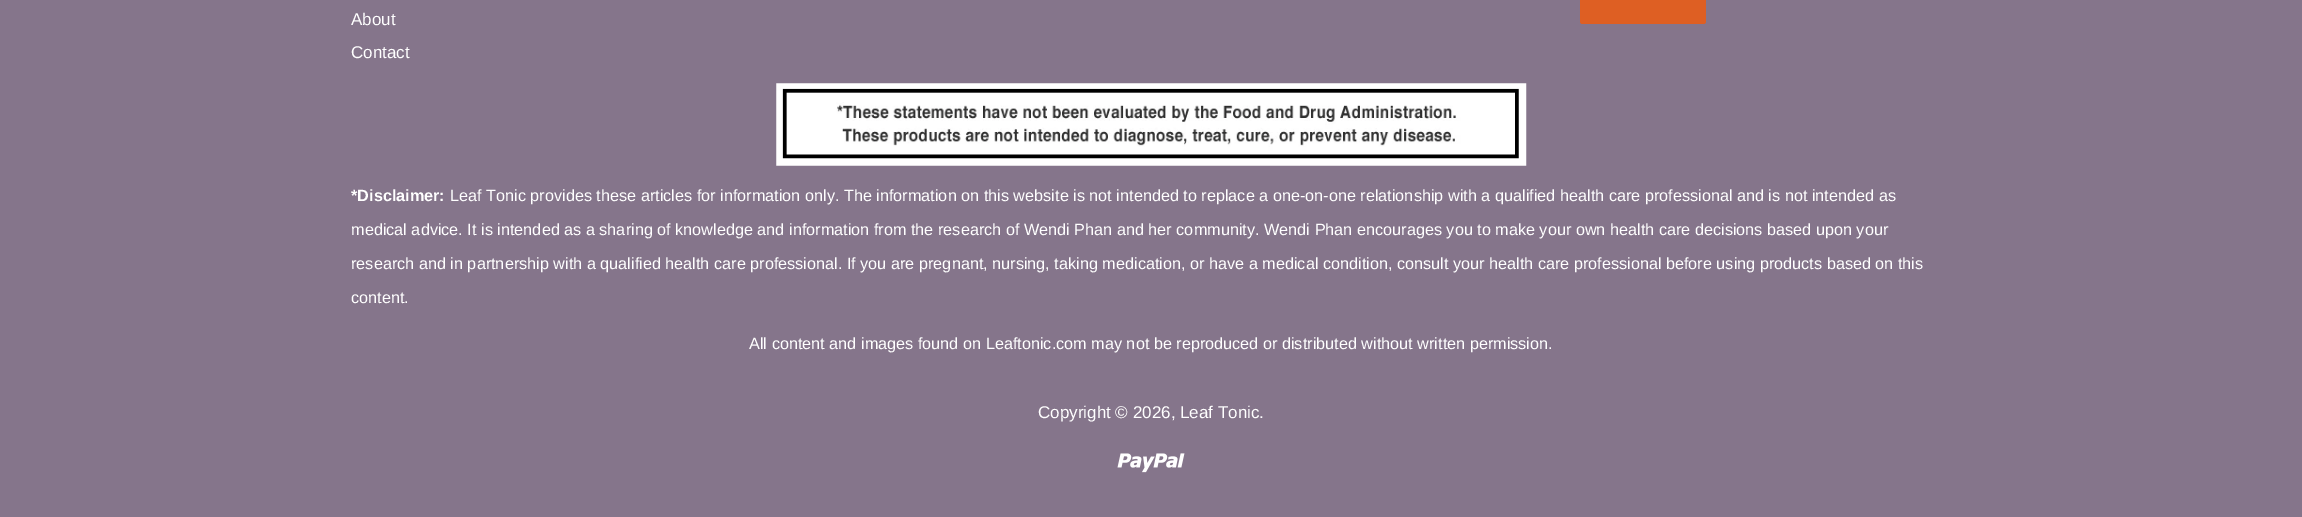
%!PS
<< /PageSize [2302 517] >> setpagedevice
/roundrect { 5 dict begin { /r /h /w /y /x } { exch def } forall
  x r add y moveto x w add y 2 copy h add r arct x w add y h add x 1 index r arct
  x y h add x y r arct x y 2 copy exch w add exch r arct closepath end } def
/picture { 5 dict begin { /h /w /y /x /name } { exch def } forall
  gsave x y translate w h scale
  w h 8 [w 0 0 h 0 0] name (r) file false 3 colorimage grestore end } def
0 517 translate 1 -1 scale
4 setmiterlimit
0.522 0.459 0.545 setrgbcolor
0 0 2302 517 rectfill
/LiberationSans-Regular [17 0 0 -17 0 0] selectfont
1 setgray
351 25 moveto (About) show
351 58 moveto (Contact) show
0.871 0.373 0.137 setrgbcolor
1580 -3 126 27 2.5 roundrect fill
(img1.rgb) 776 83 751 83 picture
/LiberationSans-Bold [16.25 0 0 -16.25 0 0] selectfont
1 setgray
351 201 moveto (*Disclaimer:) show
/LiberationSans-Regular [16.25 0 0 -16.25 0 0] selectfont
450 201 moveto (Leaf Tonic provides these articles for information only. The information on this website is not intended to replace a one-on-one relationship with a qualified health care professional and is not intended as) show
351 235 moveto (medical advice. It is intended as a sharing of knowledge and information from the research of Wendi Phan and her community. Wendi Phan encourages you to make your own health care decisions based upon your) show
351 269 moveto (research and in partnership with a qualified health care professional. If you are pregnant, nursing, taking medication, or have a medical condition, consult your health care professional before using products based on this) show
351 303 moveto (content.) show
749 349 moveto (All content and images found on Leaftonic.com may not be reproduced or distributed without written permission.) show
/LiberationSans-Regular [17 0 0 -17 0 0] selectfont
1038 418 moveto (Copyright © 2026, Leaf Tonic.) show
(img2.rgb) 1117 453 68 20 picture
showpage
